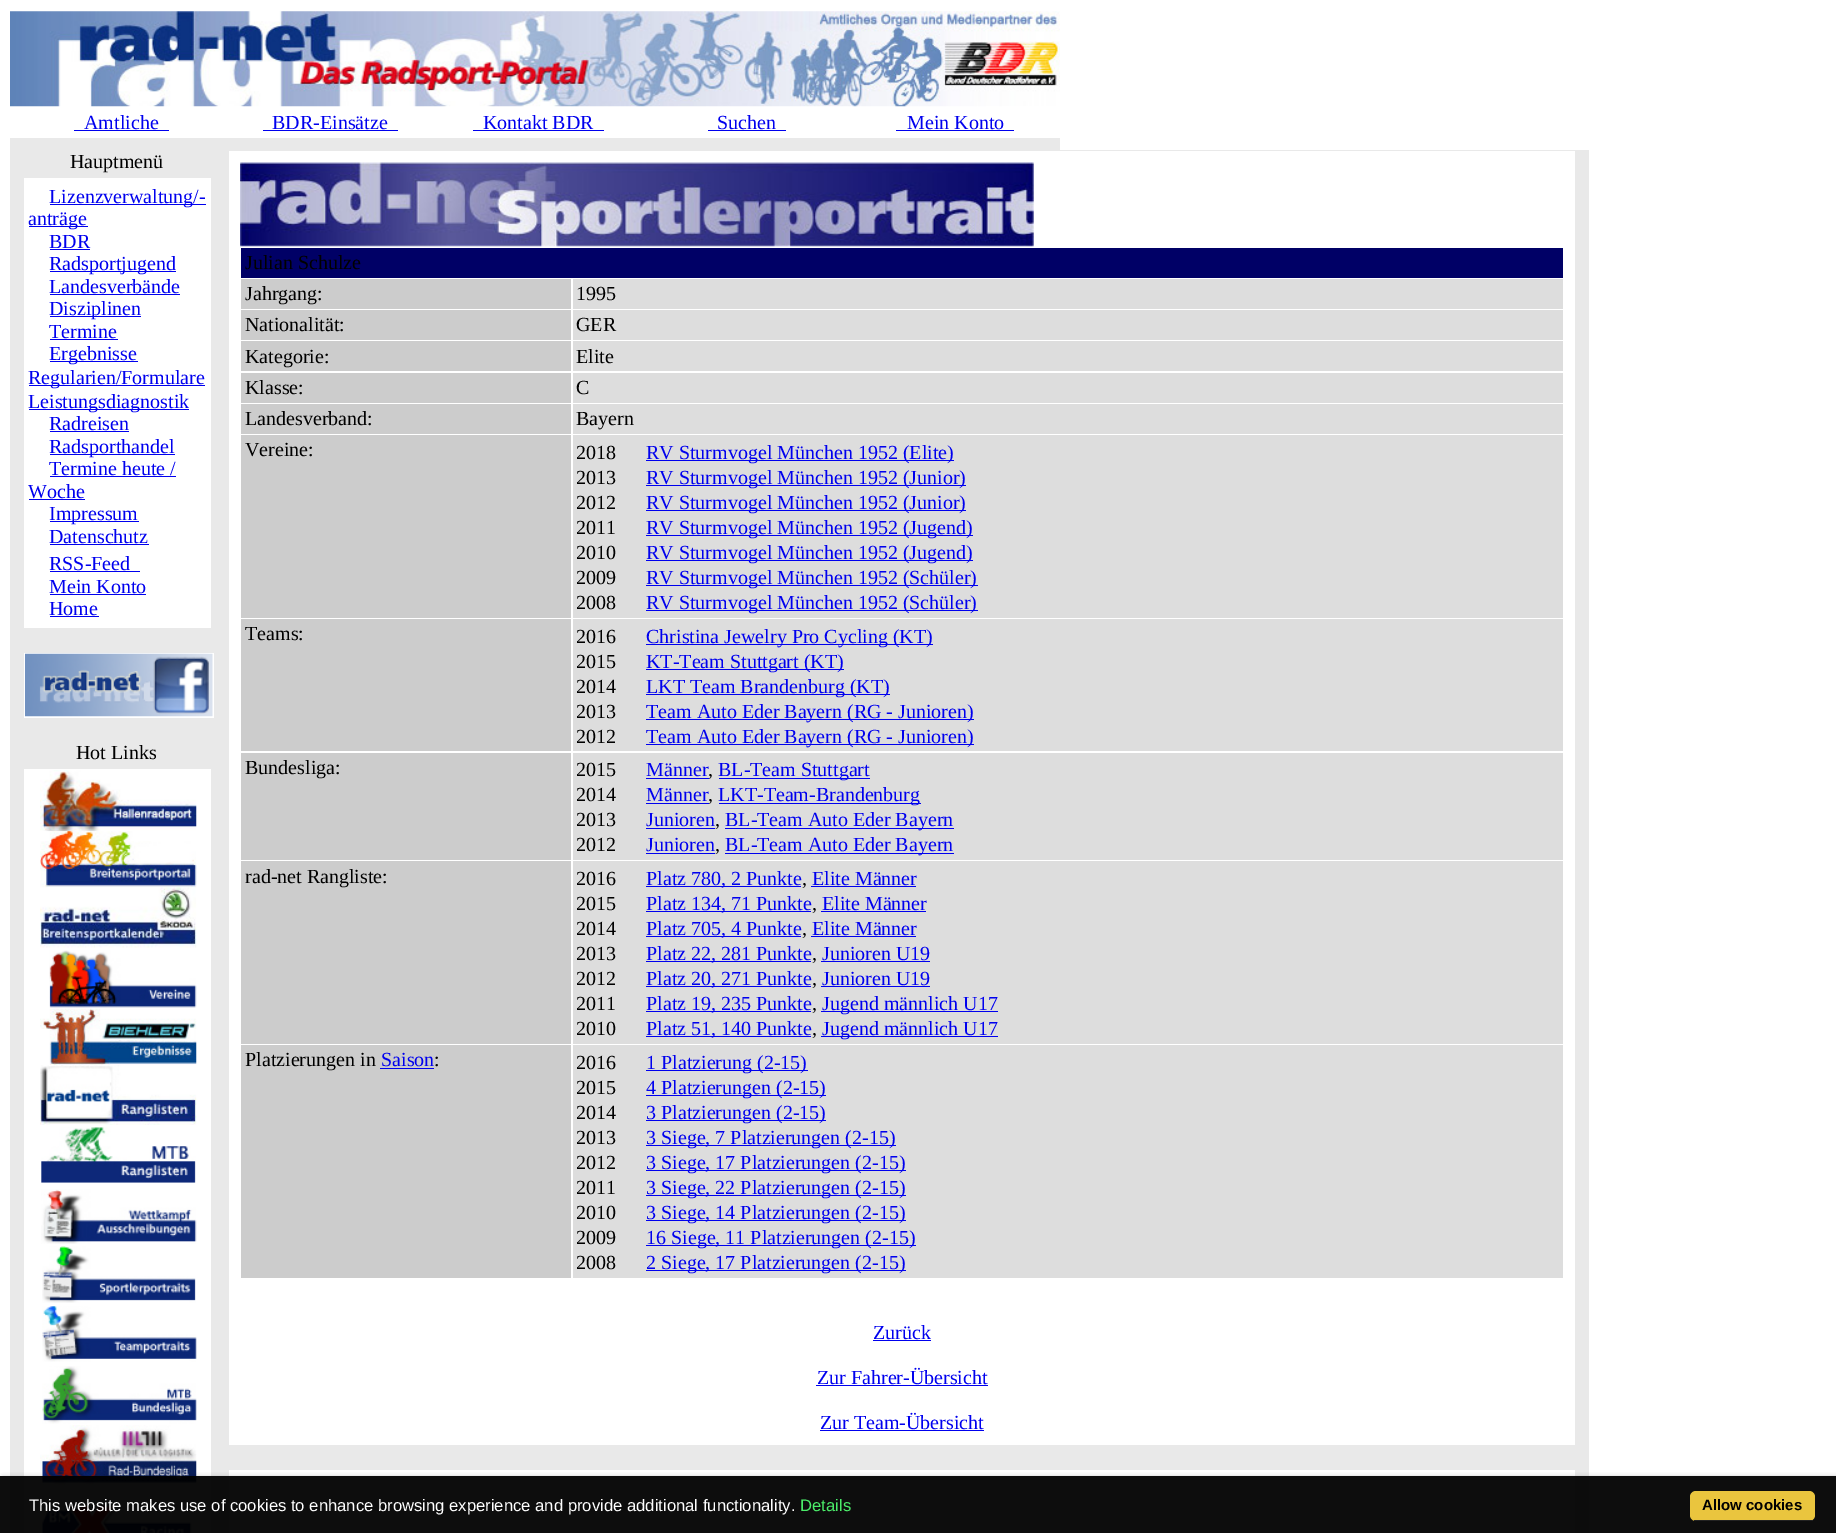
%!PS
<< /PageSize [1836 1533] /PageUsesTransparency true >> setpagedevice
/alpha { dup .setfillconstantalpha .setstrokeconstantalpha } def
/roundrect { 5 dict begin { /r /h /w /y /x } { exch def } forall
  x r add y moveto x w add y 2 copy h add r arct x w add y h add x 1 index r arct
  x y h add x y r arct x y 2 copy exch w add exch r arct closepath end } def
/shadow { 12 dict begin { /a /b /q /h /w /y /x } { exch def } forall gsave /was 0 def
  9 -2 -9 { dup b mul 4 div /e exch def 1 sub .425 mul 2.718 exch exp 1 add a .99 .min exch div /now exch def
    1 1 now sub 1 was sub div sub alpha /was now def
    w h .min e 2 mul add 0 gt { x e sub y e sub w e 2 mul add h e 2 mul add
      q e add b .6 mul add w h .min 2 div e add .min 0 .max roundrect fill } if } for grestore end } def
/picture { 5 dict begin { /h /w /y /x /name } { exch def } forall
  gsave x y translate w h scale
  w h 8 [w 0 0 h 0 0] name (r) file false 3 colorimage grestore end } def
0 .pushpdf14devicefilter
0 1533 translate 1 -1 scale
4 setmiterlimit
1 setgray
0 0 1836 1533 rectfill
(img1.rgb) 10 11 1050 96 picture
/LiberationSerif-Regular [20 0 0 -20 0 0] selectfont
0 0 0.933 setrgbcolor
84 129 moveto (Amtliche) show
74 130 95 1 rectfill
272 129 moveto (BDR-Einsätze) show
263 130 135 1 rectfill
483 129 moveto (Kontakt BDR) show
473 130 131 1 rectfill
717 129 moveto (Suchen) show
708 130 78 1 rectfill
907 129 moveto (Mein Konto) show
896 130 118 1 rectfill
0.914 setgray
10 138 1050 12 rectfill
10 150 1579 1383 rectfill
0 setgray
70 168 moveto (Hauptmenü) show
1 setgray
24 178 187 450 rectfill
0 0 0.933 setrgbcolor
50 204 156 1 rectfill
49 203 moveto (Lizenzverwaltung/-) show
29 226 59 1 rectfill
28 225 moveto (anträge) show
49 248 moveto (BDR) show
50 249 40 1 rectfill
50 271 126 1 rectfill
49 270 moveto (Radsportjugend) show
49 293 moveto (Landesverbände) show
50 294 130 1 rectfill
50 316 91 1 rectfill
49 315 moveto (Disziplinen) show
49 338 moveto (Termine) show
50 339 68 1 rectfill
50 361 88 1 rectfill
49 360 moveto (Ergebnisse) show
29 385 176 1 rectfill
28 384 moveto (Regularien/Formulare) show
29 409 160 1 rectfill
28 408 moveto (Leistungsdiagnostik) show
49 430 moveto (Radreisen) show
50 431 79 1 rectfill
50 454 125 1 rectfill
49 453 moveto (Radsporthandel) show
49 475 moveto (Termine heute /) show
50 476 126 1 rectfill
28 498 moveto (Woche) show
29 499 56 1 rectfill
50 521 89 1 rectfill
49 520 moveto (Impressum) show
49 543 moveto (Datenschutz) show
50 544 99 1 rectfill
49 570 moveto (RSS-Feed) show
50 571 90 1 rectfill
49 593 moveto (Mein Konto) show
50 594 96 1 rectfill
49 615 moveto (Home) show
50 616 49 1 rectfill
1 setgray
24 653 190 65 rectfill
(img2.rgb) 25 653 188 64 picture
0 setgray
76 759 moveto (Hot Links) show
1 setgray
24 769 187 764 rectfill
(img3.rgb) 40 770 157 62 picture
(img4.rgb) 40 831 157 57 picture
(img5.rgb) 40 887 157 61 picture
(img6.rgb) 49 950 148 58 picture
(img7.rgb) 40 1008 157 57 picture
(img8.rgb) 40 1065 157 60 picture
(img9.rgb) 41 1127 155 56 picture
(img10.rgb) 41 1189 156 55 picture
(img11.rgb) 42 1246 154 57 picture
(img12.rgb) 42 1306 155 56 picture
(img13.rgb) 42 1366 155 58 picture
(img14.rgb) 40 1425 157 60 picture
(img15.rgb) 42 1502 150 31 picture
229 151 1346 1294 rectfill
(img16.rgb) 240 162 794 85 picture
0 0 0.4 setrgbcolor
241 248 1322 30 rectfill
0 setgray
245 269 moveto (Julian Schulze) show
0.8 setgray
241 279 330 30 rectfill
0 setgray
245 300 moveto (Jahrgang:) show
0.867 setgray
573 279 990 30 rectfill
0 setgray
576 300 moveto (1995) show
0.8 setgray
241 310 330 30 rectfill
0 setgray
245 331 moveto (Nationalität:) show
0.867 setgray
573 310 990 30 rectfill
0 setgray
576 331 moveto (GER) show
0.8 setgray
241 341 330 30 rectfill
0 setgray
245 363 moveto (Kategorie:) show
0.867 setgray
573 341 990 30 rectfill
0 setgray
576 363 moveto (Elite) show
0.8 setgray
241 373 330 30 rectfill
0 setgray
245 394 moveto (Klasse:) show
0.867 setgray
573 373 990 30 rectfill
0 setgray
576 394 moveto (C) show
0.8 setgray
241 404 330 30 rectfill
0 setgray
245 425 moveto (Landesverband:) show
0.867 setgray
573 404 990 30 rectfill
0 setgray
576 425 moveto (Bayern) show
0.8 setgray
241 435 330 183 rectfill
0 setgray
245 456 moveto (Vereine:) show
0.867 setgray
573 435 990 183 rectfill
0 setgray
576 459 moveto (2018) show
0 0 0.933 setrgbcolor
646 460 308 1 rectfill
646 459 moveto (RV Sturmvogel München 1952 \(Elite\)) show
0 setgray
576 484 moveto (2013) show
0 0 0.933 setrgbcolor
646 485 320 1 rectfill
646 484 moveto (RV Sturmvogel München 1952 \(Junior\)) show
0 setgray
576 509 moveto (2012) show
0 0 0.933 setrgbcolor
646 510 320 1 rectfill
646 509 moveto (RV Sturmvogel München 1952 \(Junior\)) show
0 setgray
576 534 moveto (2011) show
0 0 0.933 setrgbcolor
646 535 327 1 rectfill
646 534 moveto (RV Sturmvogel München 1952 \(Jugend\)) show
0 setgray
576 559 moveto (2010) show
0 0 0.933 setrgbcolor
646 560 327 1 rectfill
646 559 moveto (RV Sturmvogel München 1952 \(Jugend\)) show
0 setgray
576 584 moveto (2009) show
0 0 0.933 setrgbcolor
646 585 332 1 rectfill
646 584 moveto (RV Sturmvogel München 1952 \(Schüler\)) show
0 setgray
576 609 moveto (2008) show
0 0 0.933 setrgbcolor
646 610 332 1 rectfill
646 609 moveto (RV Sturmvogel München 1952 \(Schüler\)) show
0.8 setgray
241 619 330 132 rectfill
0 setgray
245 640 moveto (Teams:) show
0.867 setgray
573 619 990 132 rectfill
0 setgray
576 643 moveto (2016) show
0 0 0.933 setrgbcolor
646 644 287 1 rectfill
646 643 moveto (Christina Jewelry Pro Cycling \(KT\)) show
0 setgray
576 668 moveto (2015) show
0 0 0.933 setrgbcolor
646 669 198 1 rectfill
646 668 moveto (KT-Team Stuttgart \(KT\)) show
0 setgray
576 693 moveto (2014) show
0 0 0.933 setrgbcolor
646 694 244 1 rectfill
646 693 moveto (LKT Team Brandenburg \(KT\)) show
0 setgray
576 718 moveto (2013) show
0 0 0.933 setrgbcolor
646 719 328 1 rectfill
646 718 moveto (Team Auto Eder Bayern \(RG - Junioren\)) show
0 setgray
576 743 moveto (2012) show
0 0 0.933 setrgbcolor
646 744 328 1 rectfill
646 743 moveto (Team Auto Eder Bayern \(RG - Junioren\)) show
0.8 setgray
241 753 330 107 rectfill
0 setgray
245 774 moveto (Bundesliga:) show
0.867 setgray
573 753 990 107 rectfill
0 setgray
576 776 moveto (2015) show
0 0 0.933 setrgbcolor
646 776 moveto (Männer) show
0 setgray
708 776 moveto (,) show
0 0 0.933 setrgbcolor
646 778 63 1 rectfill
719 778 151 1 rectfill
718 776 moveto (BL-Team Stuttgart) show
0 setgray
576 801 moveto (2014) show
0 0 0.933 setrgbcolor
646 801 moveto (Männer) show
0 setgray
708 801 moveto (,) show
0 0 0.933 setrgbcolor
646 803 63 1 rectfill
719 803 202 1 rectfill
718 801 moveto (LKT-Team-Brandenburg) show
0 setgray
576 826 moveto (2013) show
0 0 0.933 setrgbcolor
646 826 moveto (Junioren) show
0 setgray
715 826 moveto (,) show
0 0 0.933 setrgbcolor
646 828 69 1 rectfill
725 828 229 1 rectfill
725 826 moveto (BL-Team Auto Eder Bayern) show
0 setgray
576 851 moveto (2012) show
0 0 0.933 setrgbcolor
646 851 moveto (Junioren) show
0 setgray
715 851 moveto (,) show
0 0 0.933 setrgbcolor
646 853 69 1 rectfill
725 853 229 1 rectfill
725 851 moveto (BL-Team Auto Eder Bayern) show
0.8 setgray
241 861 330 183 rectfill
0 setgray
245 883 moveto (rad-net Rangliste:) show
0.867 setgray
573 861 990 183 rectfill
0 setgray
576 885 moveto (2016) show
0 0 0.933 setrgbcolor
646 886 155 1 rectfill
646 885 moveto (Platz 780, 2 Punkte) show
0 setgray
802 885 moveto (,) show
0 0 0.933 setrgbcolor
811 886 105 1 rectfill
812 885 moveto (Elite Männer) show
0 setgray
576 910 moveto (2015) show
0 0 0.933 setrgbcolor
646 911 165 1 rectfill
646 910 moveto (Platz 134, 71 Punkte) show
0 setgray
812 910 moveto (,) show
0 0 0.933 setrgbcolor
821 911 105 1 rectfill
822 910 moveto (Elite Männer) show
0 setgray
576 935 moveto (2014) show
0 0 0.933 setrgbcolor
646 936 155 1 rectfill
646 935 moveto (Platz 705, 4 Punkte) show
0 setgray
802 935 moveto (,) show
0 0 0.933 setrgbcolor
811 936 105 1 rectfill
812 935 moveto (Elite Männer) show
0 setgray
576 960 moveto (2013) show
0 0 0.933 setrgbcolor
646 961 165 1 rectfill
646 960 moveto (Platz 22, 281 Punkte) show
0 setgray
812 960 moveto (,) show
0 0 0.933 setrgbcolor
821 961 109 1 rectfill
822 960 moveto (Junioren U19) show
0 setgray
576 985 moveto (2012) show
0 0 0.933 setrgbcolor
646 986 165 1 rectfill
646 985 moveto (Platz 20, 271 Punkte) show
0 setgray
812 985 moveto (,) show
0 0 0.933 setrgbcolor
821 986 109 1 rectfill
822 985 moveto (Junioren U19) show
0 setgray
576 1010 moveto (2011) show
0 0 0.933 setrgbcolor
646 1011 165 1 rectfill
646 1010 moveto (Platz 19, 235 Punkte) show
0 setgray
812 1010 moveto (,) show
0 0 0.933 setrgbcolor
821 1011 177 1 rectfill
822 1010 moveto (Jugend männlich U17) show
0 setgray
576 1035 moveto (2010) show
0 0 0.933 setrgbcolor
646 1036 165 1 rectfill
646 1035 moveto (Platz 51, 140 Punkte) show
0 setgray
812 1035 moveto (,) show
0 0 0.933 setrgbcolor
821 1036 177 1 rectfill
822 1035 moveto (Jugend männlich U17) show
0.8 setgray
241 1045 330 233 rectfill
0 setgray
245 1066 moveto (Platzierungen in) show
0 0 0.933 setrgbcolor
381 1066 moveto (Saison) show
0 setgray
434 1066 moveto (:) show
0 0 0.933 setrgbcolor
380 1068 54 1 rectfill
0.867 setgray
573 1045 990 233 rectfill
0 setgray
576 1069 moveto (2016) show
0 0 0.933 setrgbcolor
646 1070 162 1 rectfill
646 1069 moveto (1 Platzierung \(2-15\)) show
0 setgray
576 1094 moveto (2015) show
0 0 0.933 setrgbcolor
646 1095 180 1 rectfill
646 1094 moveto (4 Platzierungen \(2-15\)) show
0 setgray
576 1119 moveto (2014) show
0 0 0.933 setrgbcolor
646 1120 180 1 rectfill
646 1119 moveto (3 Platzierungen \(2-15\)) show
0 setgray
576 1144 moveto (2013) show
0 0 0.933 setrgbcolor
646 1145 250 1 rectfill
646 1144 moveto (3 Siege, 7 Platzierungen \(2-15\)) show
0 setgray
576 1169 moveto (2012) show
0 0 0.933 setrgbcolor
646 1170 260 1 rectfill
646 1169 moveto (3 Siege, 17 Platzierungen \(2-15\)) show
0 setgray
576 1194 moveto (2011) show
0 0 0.933 setrgbcolor
646 1195 260 1 rectfill
646 1194 moveto (3 Siege, 22 Platzierungen \(2-15\)) show
0 setgray
576 1219 moveto (2010) show
0 0 0.933 setrgbcolor
646 1220 260 1 rectfill
646 1219 moveto (3 Siege, 14 Platzierungen \(2-15\)) show
0 setgray
576 1244 moveto (2009) show
0 0 0.933 setrgbcolor
646 1245 270 1 rectfill
646 1244 moveto (16 Siege, 11 Platzierungen \(2-15\)) show
0 setgray
576 1269 moveto (2008) show
0 0 0.933 setrgbcolor
646 1270 260 1 rectfill
646 1269 moveto (2 Siege, 17 Platzierungen \(2-15\)) show
873 1339 moveto (Zurück) show
873 1340 58 1 rectfill
817 1384 moveto (Zur Fahrer-Übersicht) show
816 1385 172 1 rectfill
820 1429 moveto (Zur Team-Übersicht) show
820 1430 164 1 rectfill
1 setgray
229 1470 1346 63 rectfill
gsave
newpath 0 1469 moveto 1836 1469 lineto 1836 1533 lineto 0 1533 lineto closepath 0 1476 moveto 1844 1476 lineto 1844 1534 lineto 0 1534 lineto closepath eoclip newpath
0 setgray
3 1479 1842 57 0 3 0.6 shadow
grestore
0.95 alpha
0 setgray
0 1476 1836 57 rectfill
/LiberationSans-Regular [16.65 0 0 -16.65 0 0] selectfont
1 alpha
1 setgray
29 1511 moveto (This website makes use of cookies to enhance browsing experience and provide additional functionality.) show
0.294 0.925 0.412 setrgbcolor
800 1511 moveto (Details) show
0.918 0.773 0.243 setrgbcolor
1690 1491 125 30 6 roundrect fill
0.133 setgray
1694 1520 119 1 rectfill
/LiberationSans-Bold [15 0 0 -15 0 0] selectfont
0 setgray
1702 1510 moveto (Allow cookies) show
.poppdf14devicefilter showpage
